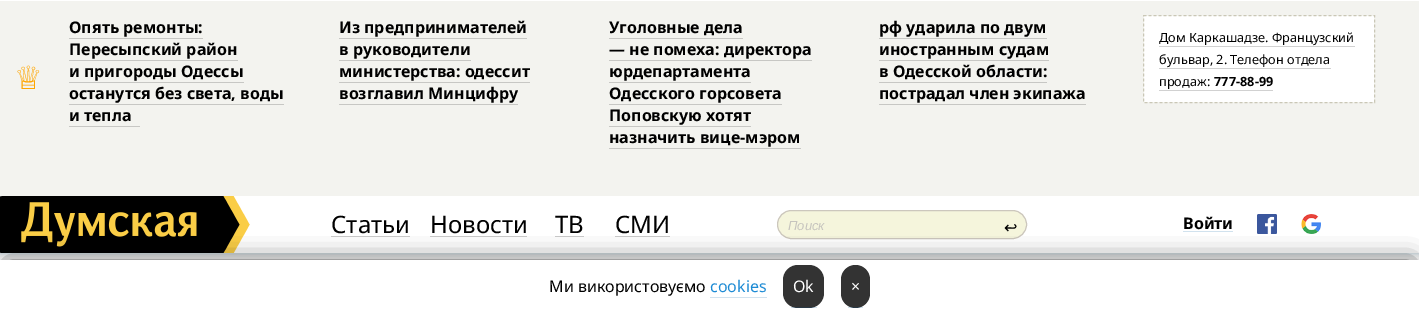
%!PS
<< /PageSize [1419 310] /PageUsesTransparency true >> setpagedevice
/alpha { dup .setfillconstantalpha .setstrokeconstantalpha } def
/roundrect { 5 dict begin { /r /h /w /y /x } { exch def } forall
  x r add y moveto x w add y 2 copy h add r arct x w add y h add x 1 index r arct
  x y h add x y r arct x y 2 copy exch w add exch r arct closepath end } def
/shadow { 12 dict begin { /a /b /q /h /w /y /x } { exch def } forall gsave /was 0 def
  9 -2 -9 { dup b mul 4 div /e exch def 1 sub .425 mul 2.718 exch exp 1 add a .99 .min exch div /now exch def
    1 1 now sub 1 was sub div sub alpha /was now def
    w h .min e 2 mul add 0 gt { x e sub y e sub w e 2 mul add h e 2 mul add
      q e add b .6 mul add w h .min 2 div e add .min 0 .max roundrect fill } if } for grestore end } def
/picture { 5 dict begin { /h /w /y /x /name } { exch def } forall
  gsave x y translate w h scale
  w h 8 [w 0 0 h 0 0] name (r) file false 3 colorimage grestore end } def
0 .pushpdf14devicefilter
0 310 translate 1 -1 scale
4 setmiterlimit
1 setgray
0 0 1419 310 rectfill
gsave
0 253 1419 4 rectclip
0 0.31 0.478 setrgbcolor
0 196 1419 57 0 2.5 0.3 shadow
grestore
0.953 0.953 0.937 setrgbcolor
0 1 1419 195 rectfill
/DejaVuSans-Regular [32 0 0 -32 0 0] selectfont
1 0.647 0 setrgbcolor
14 89 moveto (♕) show
/NotoSans-Bold [16 0 0 -16 0 0] selectfont
0 setgray
69 33 moveto (Опять ремонты:) show
0.78 0.78 0.769 setrgbcolor
69 38 134 1 rectfill
0 setgray
69 55 moveto (Пересыпский район) show
0.78 0.78 0.769 setrgbcolor
69 60 169 1 rectfill
0 setgray
69 77 moveto (и пригороды Одессы) show
0.78 0.78 0.769 setrgbcolor
69 82 175 1 rectfill
0 setgray
69 99 moveto (останутся без света, воды) show
0.78 0.78 0.769 setrgbcolor
69 104 215 1 rectfill
0 setgray
69 121 moveto (и тепла) show
0.78 0.78 0.769 setrgbcolor
69 126 71 1 rectfill
0 setgray
339 33 moveto (Из предпринимателей) show
0.78 0.78 0.769 setrgbcolor
339 38 188 1 rectfill
0 setgray
339 55 moveto (в руководители) show
0.78 0.78 0.769 setrgbcolor
339 60 132 1 rectfill
0 setgray
339 77 moveto (министерства: одессит) show
0.78 0.78 0.769 setrgbcolor
339 82 191 1 rectfill
0 setgray
339 99 moveto (возглавил Минцифру) show
0.78 0.78 0.769 setrgbcolor
339 104 179 1 rectfill
0 setgray
609 33 moveto (Уголовные дела) show
0.78 0.78 0.769 setrgbcolor
609 38 134 1 rectfill
0 setgray
609 55 moveto (— не помеха: директора) show
0.78 0.78 0.769 setrgbcolor
609 60 203 1 rectfill
0 setgray
609 77 moveto (юрдепартамента) show
0.78 0.78 0.769 setrgbcolor
609 82 142 1 rectfill
0 setgray
609 99 moveto (Одесского горсовета) show
0.78 0.78 0.769 setrgbcolor
609 104 173 1 rectfill
0 setgray
609 121 moveto (Поповскую хотят) show
0.78 0.78 0.769 setrgbcolor
609 126 142 1 rectfill
0 setgray
609 143 moveto (назначить вице-мэром) show
0.78 0.78 0.769 setrgbcolor
609 148 192 1 rectfill
0 setgray
879 33 moveto (рф ударила по двум) show
0.78 0.78 0.769 setrgbcolor
879 38 168 1 rectfill
0 setgray
879 55 moveto (иностранным судам) show
0.78 0.78 0.769 setrgbcolor
879 60 170 1 rectfill
0 setgray
879 77 moveto (в Одесской области:) show
0.78 0.78 0.769 setrgbcolor
879 82 168 1 rectfill
0 setgray
879 99 moveto (пострадал член экипажа) show
0.78 0.78 0.769 setrgbcolor
879 104 207 1 rectfill
1 setgray
1144 16 230 86 rectfill
/NotoSans-Regular [12.75 0 0 -12.75 0 0] selectfont
0 setgray
1159 42 moveto (Дом Каркашадзе. Французский) show
0.82 setgray
1159 46 196 1 rectfill
0 setgray
1159 64 moveto (бульвар, 2. Телефон отдела) show
0.82 setgray
1159 68 172 1 rectfill
0 setgray
1159 86 moveto (продаж:) show
0.82 setgray
1159 90 114 1 rectfill
/NotoSans-Bold [12.75 0 0 -12.75 0 0] selectfont
0 setgray
1214 86 moveto (777-88-99) show
0.792 0.78 0.714 setrgbcolor
[3 2] 0 setdash
newpath 1143.5 15.5 moveto 1374.5 15.5 lineto 1374.5 102.5 lineto 1143.5 102.5 lineto closepath stroke
(img1.rgb) 0 196 250 57 picture
0.8 setgray
331 236 79 1 rectfill
/NotoSans-Regular [24 0 0 -24 0 0] selectfont
0 setgray
331 233 moveto (Статьи) show
0.8 setgray
430 236 97 1 rectfill
0 setgray
430 233 moveto (Новости) show
0.8 setgray
555 236 29 1 rectfill
0 setgray
555 233 moveto (ТВ) show
0.8 setgray
615 236 55 1 rectfill
0 setgray
615 233 moveto (СМИ) show
0.961 0.961 0.863 setrgbcolor
777.5 210.5 249 28 14 roundrect gsave fill grestore
0.8 0.78 0.741 setrgbcolor
[] 0 setdash
stroke
/LiberationSans-Italic [13 0 0 -13 0 0] selectfont
0.776 0.769 0.745 setrgbcolor
788 230 moveto (Поиск) show
/DejaVuSans-Regular [16 0 0 -16 0 0] selectfont
0 setgray
1004 233 moveto (↩) show
0.82 0.886 0.933 setrgbcolor
1183 231 50 1 rectfill
/NotoSans-Bold [16 0 0 -16 0 0] selectfont
0 setgray
1183 229 moveto (Войти) show
(img2.rgb) 1257 214 20 20 picture
(img3.rgb) 1301 214 20 20 picture
7 262 1405 36 0 11.5 0.75 shadow
1 setgray
0 260 1419 50 rectfill
/NotoSans-Regular [16 0 0 -16 0 0] selectfont
0 setgray
549 292 moveto (Ми використовуємо) show
0.11 0.541 0.831 setrgbcolor
710 292 moveto (cookies) show
0.82 0.886 0.933 setrgbcolor
710 297 57 1 rectfill
0.2 setgray
783 265 41 43 15 roundrect fill
1 setgray
793 292 moveto (Ok) show
0.18 alpha
0 0.361 0.639 setrgbcolor
791 307 26 1 rectfill
1 alpha
0.2 setgray
841 265 29 43 14.5 roundrect fill
1 setgray
851 292 moveto (×) show
0.18 alpha
0 0.361 0.639 setrgbcolor
848 307 15 1 rectfill
.poppdf14devicefilter showpage
